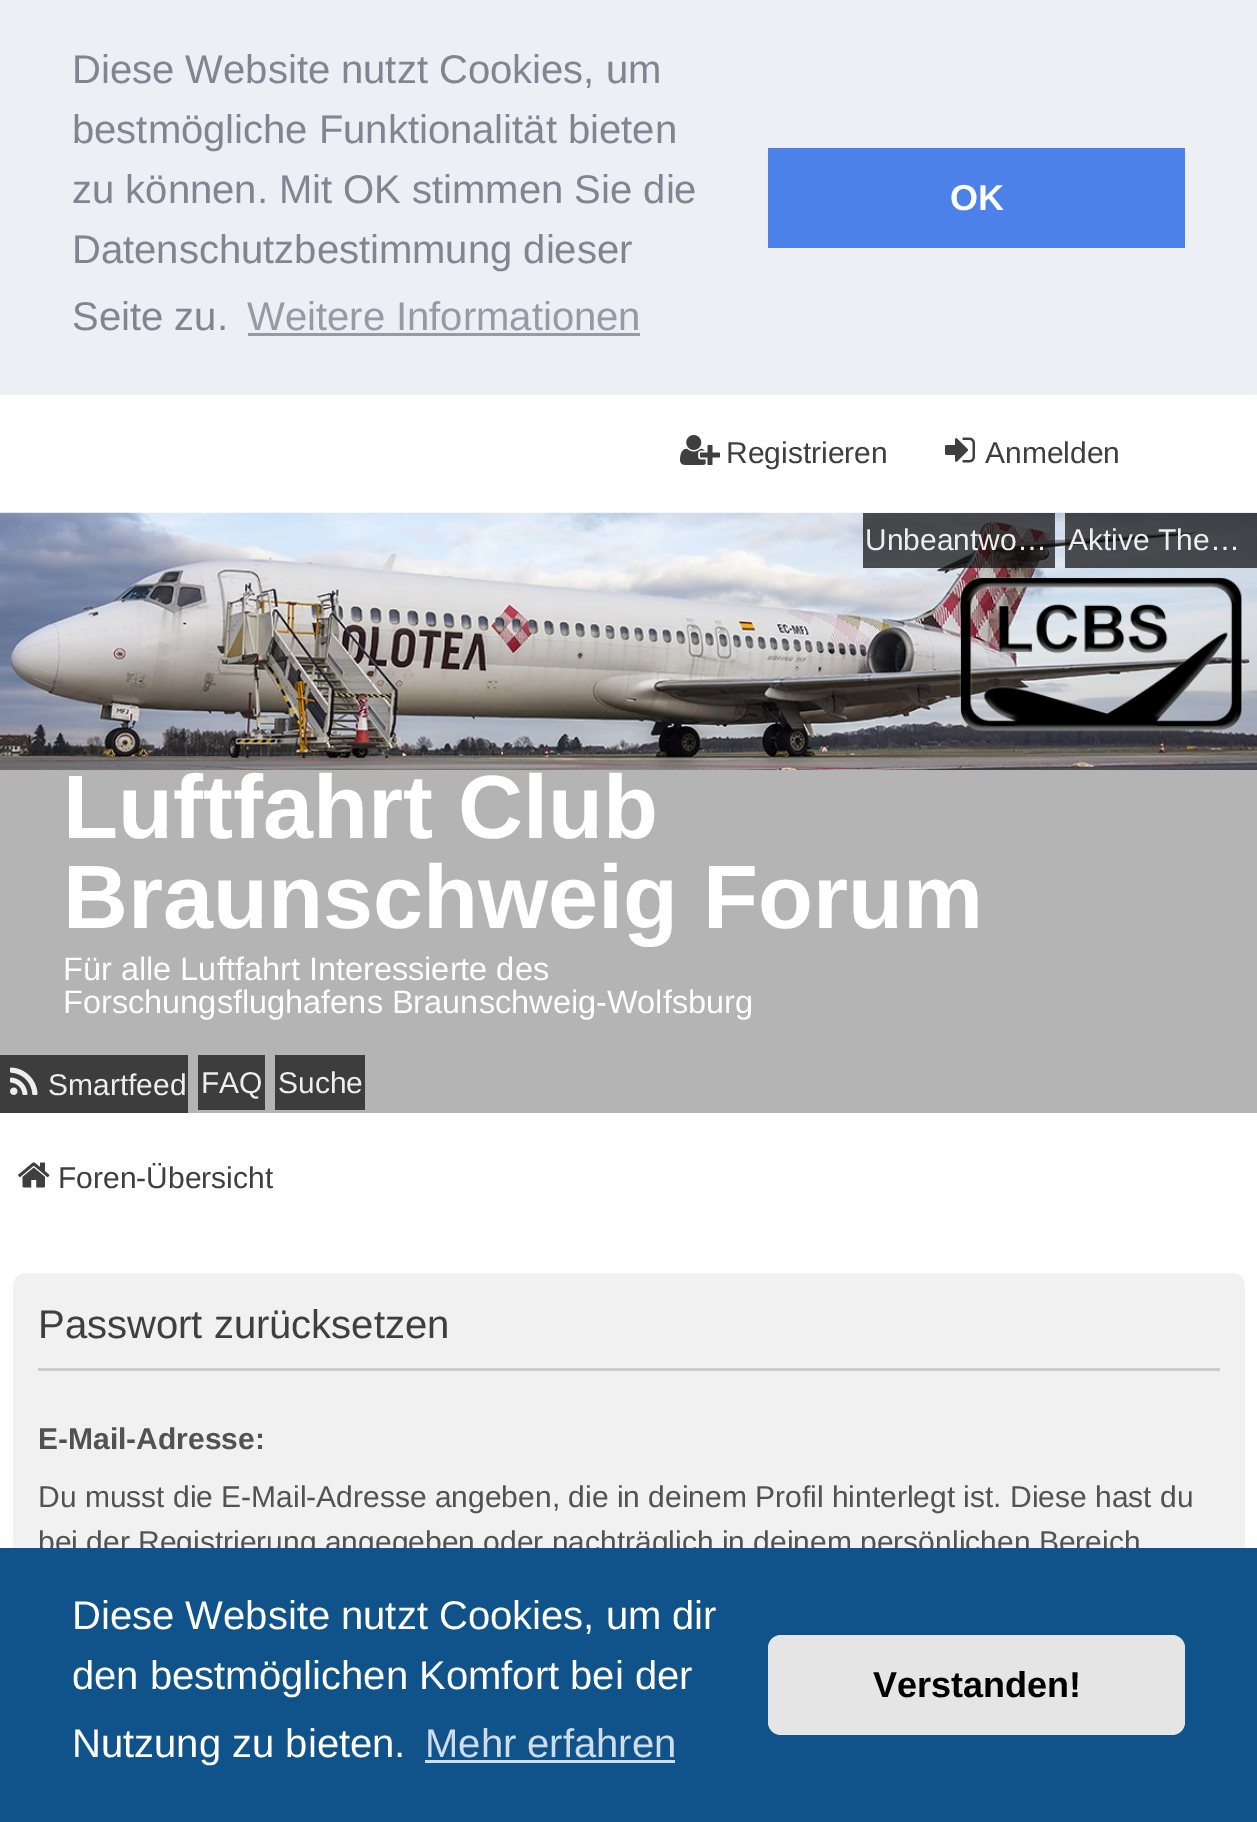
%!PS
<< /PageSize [1257 1822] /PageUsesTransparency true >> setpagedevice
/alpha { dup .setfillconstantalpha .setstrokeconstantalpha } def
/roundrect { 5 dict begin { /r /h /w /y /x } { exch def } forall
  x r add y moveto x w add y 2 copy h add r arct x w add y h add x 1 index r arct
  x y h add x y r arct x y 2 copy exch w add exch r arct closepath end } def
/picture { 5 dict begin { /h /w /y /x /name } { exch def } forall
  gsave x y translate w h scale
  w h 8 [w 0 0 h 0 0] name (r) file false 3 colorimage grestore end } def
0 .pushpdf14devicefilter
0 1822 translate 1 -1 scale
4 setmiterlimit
1 setgray
0 0 1257 1822 rectfill
0.929 0.937 0.961 setrgbcolor
0 0 1257 395 rectfill
/LiberationSans-Regular [40 0 0 -40 0 0] selectfont
0.514 0.514 0.569 setrgbcolor
72 83 moveto (Diese Website nutzt Cookies, um) show
72 143 moveto (bestmögliche Funktionalität bieten) show
72 203 moveto (zu können. Mit OK stimmen Sie die) show
72 263 moveto (Datenschutzbestimmung dieser) show
72 330 moveto (Seite zu.) show
0.596 0.6 0.647 setrgbcolor
247 330 moveto (Weitere Informationen) show
248 333 392 3 rectfill
0.294 0.506 0.91 setrgbcolor
768 148 417 100 rectfill
/LiberationSans-Bold [36 0 0 -36 0 0] selectfont
1 setgray
950 210 moveto (OK) show
(img1.rgb) 680 435 40 30 picture
/LiberationSans-Regular [30 0 0 -30 0 0] selectfont
0.247 setgray
726 463 moveto (Registrieren) show
(img2.rgb) 945 437 30 26 picture
985 463 moveto (Anmelden) show
0.706 setgray
0 770 1257 343 rectfill
(img3.rgb) 0 512 1257 258 picture
0.7 alpha
0.039 setgray
863 513 192 55 rectfill
1 alpha
0.933 setgray
865 550 moveto (Unbeantwo…) show
0.7 alpha
0.039 setgray
1065 513 192 55 rectfill
1 alpha
0.933 setgray
1068 550 moveto (Aktive The…) show
/LiberationSans-Bold [90 0 0 -90 0 0] selectfont
1 setgray
63 838 moveto (Luftfahrt Club) show
63 928 moveto (Braunschweig Forum) show
/LiberationSans-Regular [32.5 0 0 -32.5 0 0] selectfont
63 980 moveto (Für alle Luftfahrt Interessierte des) show
63 1013 moveto (Forschungsflughafens Braunschweig-Wolfsburg) show
0.239 setgray
0 1055 188 58 rectfill
(img4.rgb) 10 1067 28 28 picture
/LiberationSans-Regular [30 0 0 -30 0 0] selectfont
0.933 setgray
48 1095 moveto (Smartfeed) show
0.239 setgray
198 1055 67 55 rectfill
0.933 setgray
201 1093 moveto (FAQ) show
0.239 setgray
275 1055 90 55 rectfill
0.933 setgray
278 1093 moveto (Suche) show
(img5.rgb) 18 1162 32 26 picture
0.247 setgray
58 1188 moveto (Foren-Übersicht) show
0.945 setgray
13 1273 1232 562 13 roundrect fill
0.8 setgray
38 1368 1182 3 rectfill
/LiberationSans-Regular [40 0 0 -40 0 0] selectfont
0.247 setgray
38 1338 moveto (Passwort zurücksetzen) show
/LiberationSans-Bold [30 0 0 -30 0 0] selectfont
0.322 setgray
38 1449 moveto (E-Mail-Adresse:) show
/LiberationSans-Regular [30 0 0 -30 0 0] selectfont
38 1507 moveto (Du musst die E-Mail-Adresse angeben, die in deinem Profil hinterlegt ist. Diese hast du) show
38 1552 moveto (bei der Registrierung angegeben oder nachträglich in deinem persönlichen Bereich) show
0.059 0.325 0.541 setrgbcolor
0 1548 1257 274 rectfill
/LiberationSans-Regular [40 0 0 -40 0 0] selectfont
1 setgray
72 1629 moveto (Diese Website nutzt Cookies, um dir) show
72 1689 moveto (den bestmöglichen Komfort bei der) show
72 1757 moveto (Nutzung zu bieten.) show
0.812 0.867 0.91 setrgbcolor
425 1757 moveto (Mehr erfahren) show
425 1760 250 3 rectfill
0.898 setgray
768 1635 417 100 13 roundrect fill
/LiberationSans-Bold [36 0 0 -36 0 0] selectfont
0 setgray
873 1697 moveto (Verstanden!) show
.poppdf14devicefilter showpage
